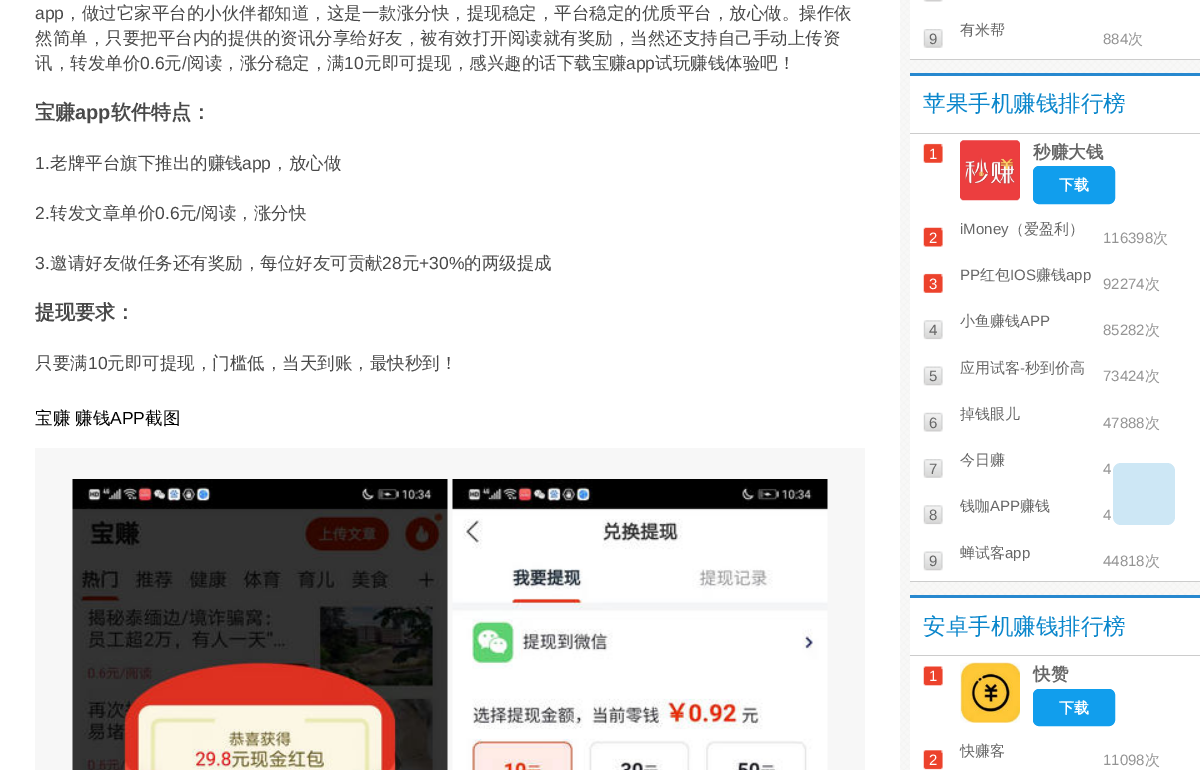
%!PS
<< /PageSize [1200 770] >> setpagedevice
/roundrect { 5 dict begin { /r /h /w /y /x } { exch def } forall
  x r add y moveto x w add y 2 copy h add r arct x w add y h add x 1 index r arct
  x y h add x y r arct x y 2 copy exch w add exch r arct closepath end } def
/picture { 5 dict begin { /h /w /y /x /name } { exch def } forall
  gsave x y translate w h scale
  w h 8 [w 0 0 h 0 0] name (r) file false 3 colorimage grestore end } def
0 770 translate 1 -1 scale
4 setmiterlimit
1 setgray
0 0 1200 770 rectfill
(img1.rgb) 900 0 300 770 picture
/LiberationSans-Regular [17.5 0 0 -17.5 0 0] selectfont
0.286 setgray
35 19 moveto (app) show
/WenQuanYiZenHei-Medium [17.5 0 0 -17.5 0 0] selectfont
64 19 moveto (，做过它家平台的小伙伴都知道，这是一款涨分快，提现稳定，平台稳定的优质平台，放心做。操作依) show
35 44 moveto (然简单，只要把平台内的提供的资讯分享给好友，被有效打开阅读就有奖励，当然还支持自己手动上传资) show
35 69 moveto (讯，转发单价) show
/LiberationSans-Regular [17.5 0 0 -17.5 0 0] selectfont
140 69 moveto (0.6) show
/WenQuanYiZenHei-Medium [17.5 0 0 -17.5 0 0] selectfont
164 69 moveto (元) show
/LiberationSans-Regular [17.5 0 0 -17.5 0 0] selectfont
182 69 moveto (/) show
/WenQuanYiZenHei-Medium [17.5 0 0 -17.5 0 0] selectfont
187 69 moveto (阅读，涨分稳定，满) show
/LiberationSans-Regular [17.5 0 0 -17.5 0 0] selectfont
344 69 moveto (10) show
/WenQuanYiZenHei-Medium [17.5 0 0 -17.5 0 0] selectfont
364 69 moveto (元即可提现，感兴趣的话下载宝赚) show
/LiberationSans-Regular [17.5 0 0 -17.5 0 0] selectfont
626 69 moveto (app) show
/WenQuanYiZenHei-Medium [17.5 0 0 -17.5 0 0] selectfont
655 69 moveto (试玩赚钱体验吧！) show
/WenQuanYiZenHei-Bold [20 0 0 -20 0 0] selectfont
35 119 moveto (宝赚) show
/LiberationSans-Bold [20 0 0 -20 0 0] selectfont
75 119 moveto (app) show
/WenQuanYiZenHei-Bold [20 0 0 -20 0 0] selectfont
111 119 moveto (软件特点：) show
/LiberationSans-Regular [17.5 0 0 -17.5 0 0] selectfont
35 169 moveto (1.) show
/WenQuanYiZenHei-Medium [17.5 0 0 -17.5 0 0] selectfont
50 169 moveto (老牌平台旗下推出的赚钱) show
/LiberationSans-Regular [17.5 0 0 -17.5 0 0] selectfont
242 169 moveto (app) show
/WenQuanYiZenHei-Medium [17.5 0 0 -17.5 0 0] selectfont
271 169 moveto (，放心做) show
/LiberationSans-Regular [17.5 0 0 -17.5 0 0] selectfont
35 219 moveto (2.) show
/WenQuanYiZenHei-Medium [17.5 0 0 -17.5 0 0] selectfont
50 219 moveto (转发文章单价) show
/LiberationSans-Regular [17.5 0 0 -17.5 0 0] selectfont
155 219 moveto (0.6) show
/WenQuanYiZenHei-Medium [17.5 0 0 -17.5 0 0] selectfont
179 219 moveto (元) show
/LiberationSans-Regular [17.5 0 0 -17.5 0 0] selectfont
196 219 moveto (/) show
/WenQuanYiZenHei-Medium [17.5 0 0 -17.5 0 0] selectfont
201 219 moveto (阅读，涨分快) show
/LiberationSans-Regular [17.5 0 0 -17.5 0 0] selectfont
35 269 moveto (3.) show
/WenQuanYiZenHei-Medium [17.5 0 0 -17.5 0 0] selectfont
50 269 moveto (邀请好友做任务还有奖励，每位好友可贡献) show
/LiberationSans-Regular [17.5 0 0 -17.5 0 0] selectfont
382 269 moveto (28) show
/WenQuanYiZenHei-Medium [17.5 0 0 -17.5 0 0] selectfont
402 269 moveto (元) show
/LiberationSans-Regular [17.5 0 0 -17.5 0 0] selectfont
419 269 moveto (+30%) show
/WenQuanYiZenHei-Medium [17.5 0 0 -17.5 0 0] selectfont
464 269 moveto (的两级提成) show
/WenQuanYiZenHei-Bold [20 0 0 -20 0 0] selectfont
35 319 moveto (提现要求：) show
/WenQuanYiZenHei-Medium [17.5 0 0 -17.5 0 0] selectfont
35 369 moveto (只要满) show
/LiberationSans-Regular [17.5 0 0 -17.5 0 0] selectfont
88 369 moveto (10) show
/WenQuanYiZenHei-Medium [17.5 0 0 -17.5 0 0] selectfont
107 369 moveto (元即可提现，门槛低，当天到账，最快秒到！) show
0 setgray
35 424 moveto (宝赚 赚钱) show
/LiberationSans-Regular [17.5 0 0 -17.5 0 0] selectfont
110 424 moveto (APP) show
/WenQuanYiZenHei-Medium [17.5 0 0 -17.5 0 0] selectfont
145 424 moveto (截图) show
0.969 setgray
35 448 830 322 rectfill
(img2.rgb) 72 479 376 291 picture
(img3.rgb) 452 479 376 291 picture
1 setgray
910 0 290 59 rectfill
0.8 setgray
910 59 290 1 rectfill
(img4.rgb) 923 0 20 2 picture
/WenQuanYiZenHei-Medium [15 0 0 -15 0 0] selectfont
0.4 setgray
960 35 moveto (有米帮) show
(img5.rgb) 923 29 20 19 picture
/LiberationSans-Regular [15 0 0 -15 0 0] selectfont
929 44 moveto (9) show
0.58 setgray
1103 44 moveto (884) show
/WenQuanYiZenHei-Medium [15 0 0 -15 0 0] selectfont
1128 44 moveto (次) show
1 setgray
910 76 290 505 rectfill
0.153 0.533 0.812 setrgbcolor
910 73 290 3 rectfill
0.8 setgray
910 581 290 1 rectfill
910 133 290 1 rectfill
/WenQuanYiZenHei-Medium [22.5 0 0 -22.5 0 0] selectfont
0.043 0.529 0.8 setrgbcolor
923 111 moveto (苹果手机赚钱排行榜) show
(img6.rgb) 923 143 20 20 picture
/LiberationSans-Regular [15 0 0 -15 0 0] selectfont
1 setgray
929 159 moveto (1) show
(img7.rgb) 960 140 60 61 picture
/WenQuanYiZenHei-Bold [17.5 0 0 -17.5 0 0] selectfont
0.4 setgray
1033 158 moveto (秒赚大钱) show
0.067 0.62 0.929 setrgbcolor
1033.5 166.5 81 37 5.5 roundrect gsave fill grestore
stroke
/WenQuanYiZenHei-Bold [15 0 0 -15 0 0] selectfont
1 setgray
1059 190 moveto (下载) show
(img8.rgb) 923 227 20 20 picture
/LiberationSans-Regular [15 0 0 -15 0 0] selectfont
929 243 moveto (2) show
0.4 setgray
960 234 moveto (iMoney) show
/WenQuanYiZenHei-Medium [15 0 0 -15 0 0] selectfont
1009 234 moveto (（爱盈利）) show
/LiberationSans-Regular [15 0 0 -15 0 0] selectfont
0.58 setgray
1103 243 moveto (116398) show
/WenQuanYiZenHei-Medium [15 0 0 -15 0 0] selectfont
1153 243 moveto (次) show
(img6.rgb) 923 273 20 20 picture
/LiberationSans-Regular [15 0 0 -15 0 0] selectfont
1 setgray
929 289 moveto (3) show
0.4 setgray
960 280 moveto (PP) show
/WenQuanYiZenHei-Medium [15 0 0 -15 0 0] selectfont
980 280 moveto (红包) show
/LiberationSans-Regular [15 0 0 -15 0 0] selectfont
1010 280 moveto (IOS) show
/WenQuanYiZenHei-Medium [15 0 0 -15 0 0] selectfont
1036 280 moveto (赚钱) show
/LiberationSans-Regular [15 0 0 -15 0 0] selectfont
1066 280 moveto (app) show
0.58 setgray
1103 289 moveto (92274) show
/WenQuanYiZenHei-Medium [15 0 0 -15 0 0] selectfont
1145 289 moveto (次) show
0.4 setgray
960 326 moveto (小鱼赚钱) show
/LiberationSans-Regular [15 0 0 -15 0 0] selectfont
1020 326 moveto (APP) show
(img9.rgb) 923 320 20 20 picture
929 335 moveto (4) show
0.58 setgray
1103 335 moveto (85282) show
/WenQuanYiZenHei-Medium [15 0 0 -15 0 0] selectfont
1145 335 moveto (次) show
(img10.rgb) 923 366 20 20 picture
/LiberationSans-Regular [15 0 0 -15 0 0] selectfont
0.4 setgray
929 381 moveto (5) show
/WenQuanYiZenHei-Medium [15 0 0 -15 0 0] selectfont
960 373 moveto (应用试客) show
/LiberationSans-Regular [15 0 0 -15 0 0] selectfont
1020 373 moveto (-) show
/WenQuanYiZenHei-Medium [15 0 0 -15 0 0] selectfont
1025 373 moveto (秒到价高) show
/LiberationSans-Regular [15 0 0 -15 0 0] selectfont
0.58 setgray
1103 381 moveto (73424) show
/WenQuanYiZenHei-Medium [15 0 0 -15 0 0] selectfont
1145 381 moveto (次) show
0.4 setgray
960 419 moveto (掉钱眼儿) show
(img11.rgb) 923 412 20 20 picture
/LiberationSans-Regular [15 0 0 -15 0 0] selectfont
929 428 moveto (6) show
0.58 setgray
1103 428 moveto (47888) show
/WenQuanYiZenHei-Medium [15 0 0 -15 0 0] selectfont
1145 428 moveto (次) show
(img5.rgb) 923 459 20 19 picture
/LiberationSans-Regular [15 0 0 -15 0 0] selectfont
0.4 setgray
929 474 moveto (7) show
/WenQuanYiZenHei-Medium [15 0 0 -15 0 0] selectfont
960 465 moveto (今日赚) show
/LiberationSans-Regular [15 0 0 -15 0 0] selectfont
0.58 setgray
1103 474 moveto (4) show
/WenQuanYiZenHei-Medium [15 0 0 -15 0 0] selectfont
0.4 setgray
960 511 moveto (钱咖) show
/LiberationSans-Regular [15 0 0 -15 0 0] selectfont
990 511 moveto (APP) show
/WenQuanYiZenHei-Medium [15 0 0 -15 0 0] selectfont
1020 511 moveto (赚钱) show
(img9.rgb) 923 505 20 20 picture
/LiberationSans-Regular [15 0 0 -15 0 0] selectfont
929 520 moveto (8) show
0.58 setgray
1103 520 moveto (4) show
(img10.rgb) 923 551 20 20 picture
0.4 setgray
929 566 moveto (9) show
/WenQuanYiZenHei-Medium [15 0 0 -15 0 0] selectfont
960 558 moveto (蝉试客) show
/LiberationSans-Regular [15 0 0 -15 0 0] selectfont
1005 558 moveto (app) show
0.58 setgray
1103 566 moveto (44818) show
/WenQuanYiZenHei-Medium [15 0 0 -15 0 0] selectfont
1145 566 moveto (次) show
1 setgray
910 598 290 172 rectfill
0.153 0.533 0.812 setrgbcolor
910 595 290 3 rectfill
0.8 setgray
910 655 290 1 rectfill
/WenQuanYiZenHei-Medium [22.5 0 0 -22.5 0 0] selectfont
0.043 0.529 0.8 setrgbcolor
923 634 moveto (安卓手机赚钱排行榜) show
(img12.rgb) 923 666 20 20 picture
/LiberationSans-Regular [15 0 0 -15 0 0] selectfont
1 setgray
929 681 moveto (1) show
(img13.rgb) 960 662 60 61 picture
/WenQuanYiZenHei-Bold [17.5 0 0 -17.5 0 0] selectfont
0.4 setgray
1033 680 moveto (快赞) show
0.067 0.62 0.929 setrgbcolor
1033.5 689.5 81 36 5.5 roundrect gsave fill grestore
stroke
/WenQuanYiZenHei-Bold [15 0 0 -15 0 0] selectfont
1 setgray
1059 713 moveto (下载) show
/WenQuanYiZenHei-Medium [15 0 0 -15 0 0] selectfont
0.4 setgray
960 756 moveto (快赚客) show
(img14.rgb) 923 750 20 20 picture
/LiberationSans-Regular [15 0 0 -15 0 0] selectfont
1 setgray
929 765 moveto (2) show
0.58 setgray
1103 765 moveto (11098) show
/WenQuanYiZenHei-Medium [15 0 0 -15 0 0] selectfont
1145 765 moveto (次) show
0.804 0.906 0.961 setrgbcolor
1113 463 62 62 8 roundrect fill
showpage
